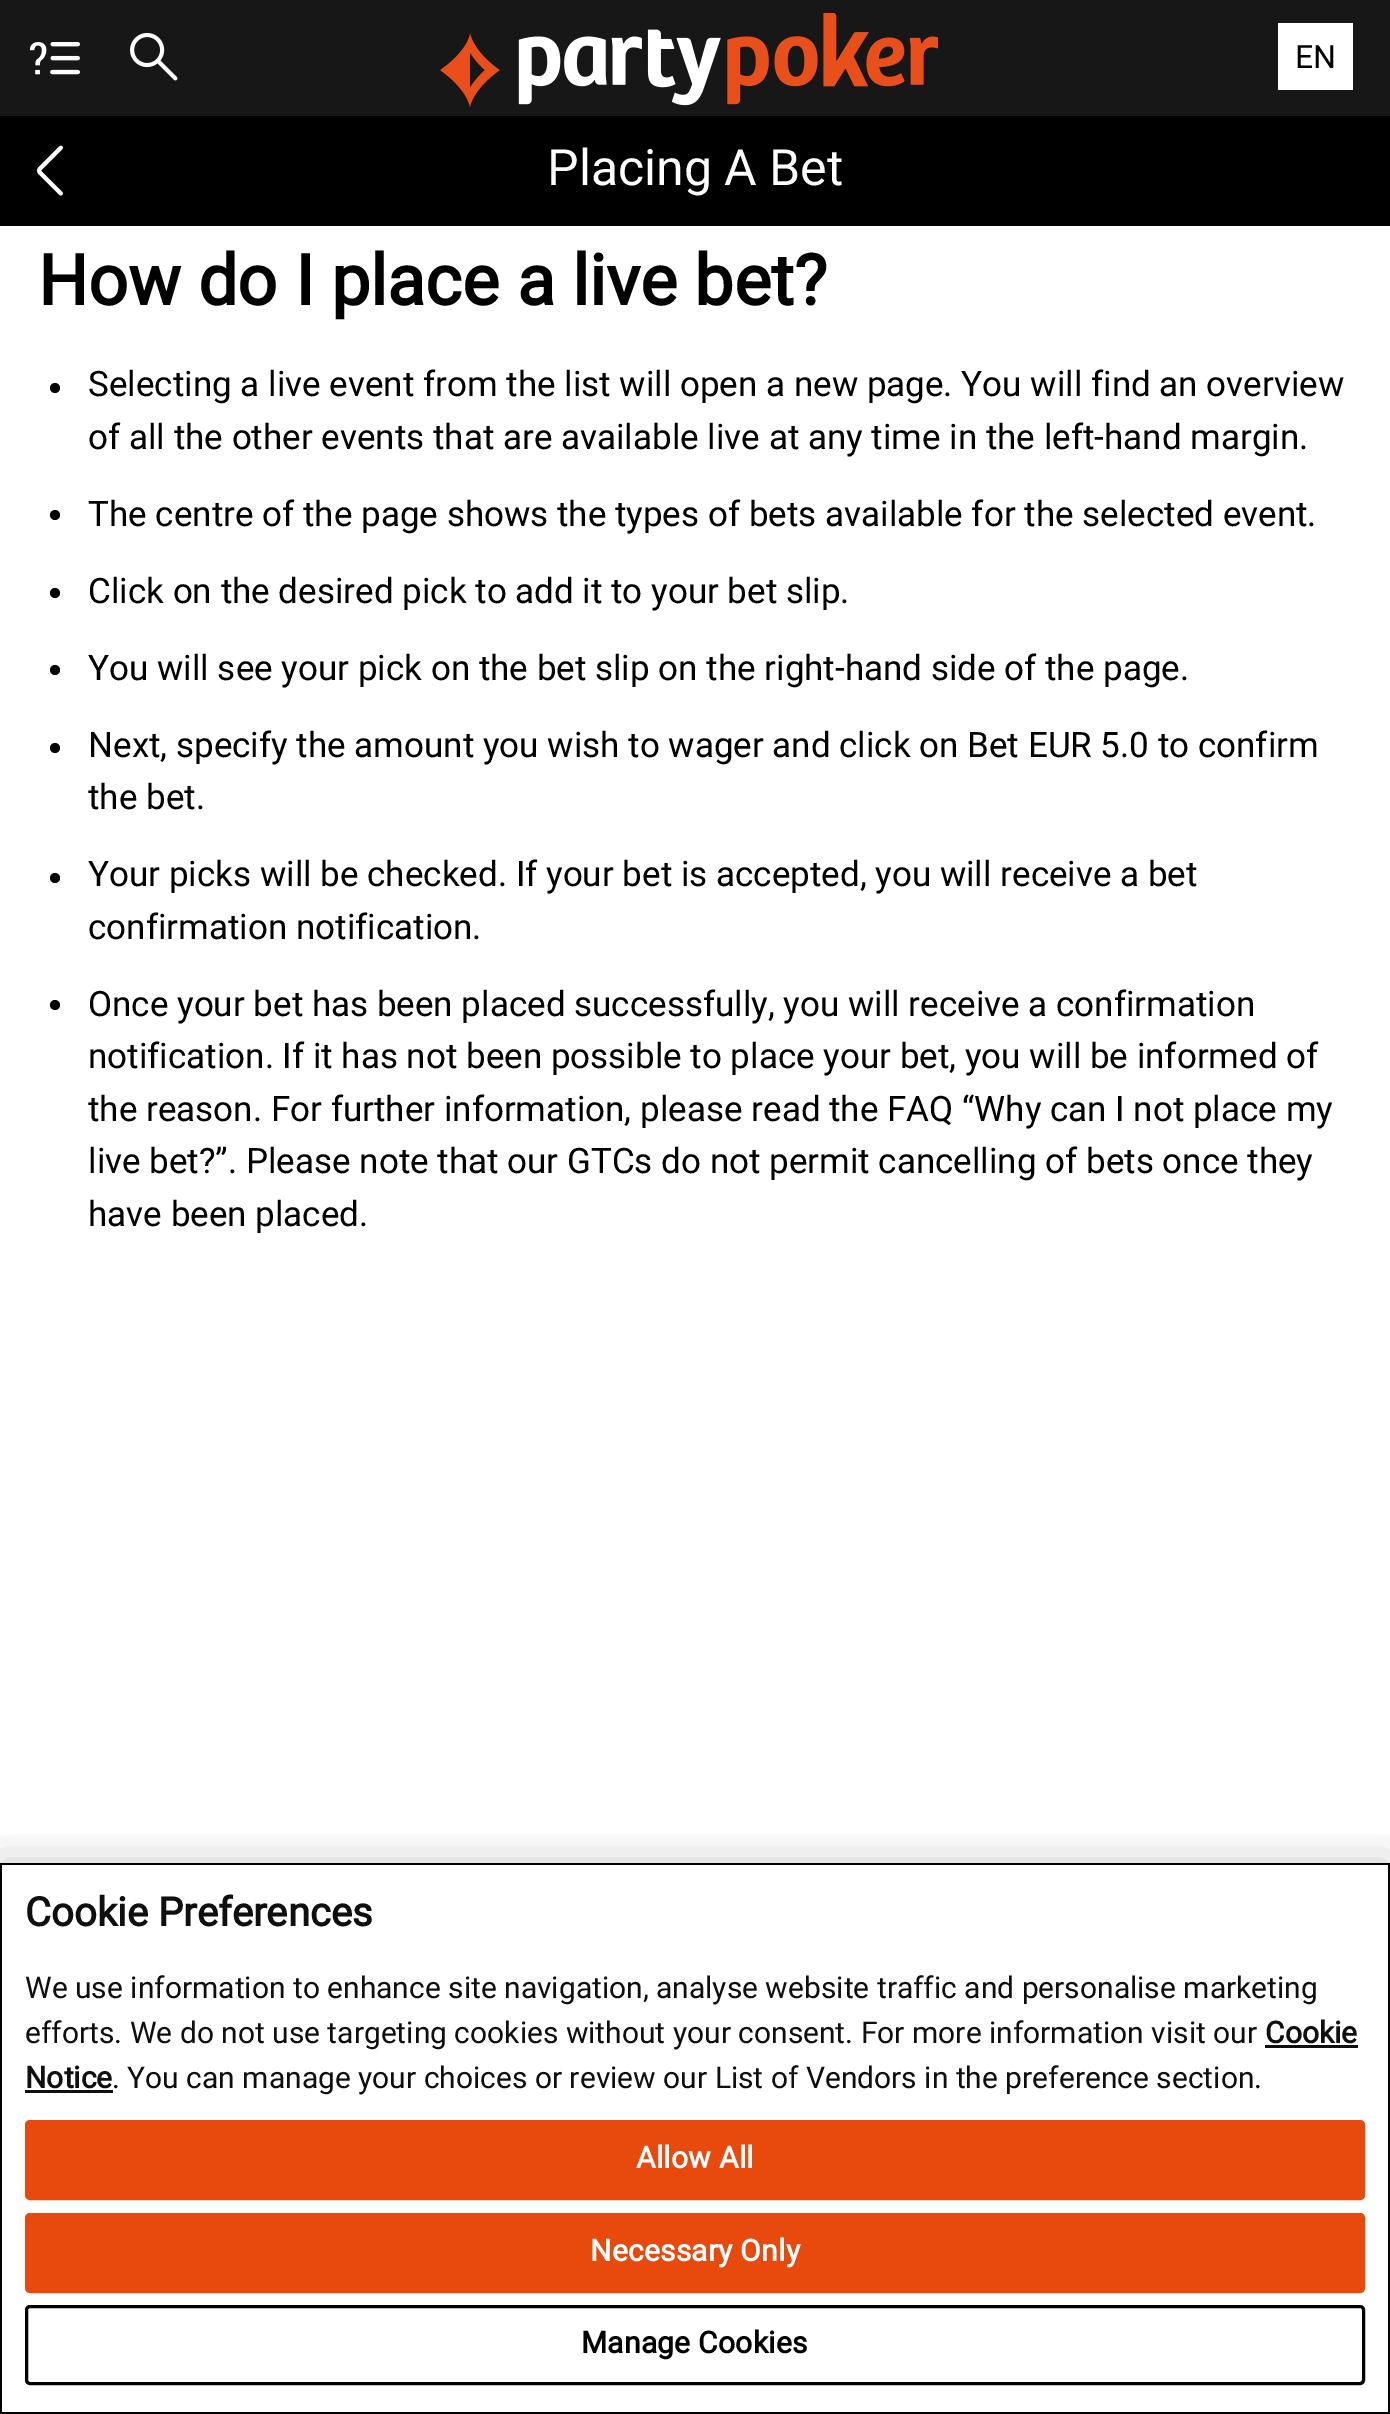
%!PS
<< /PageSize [1390 2414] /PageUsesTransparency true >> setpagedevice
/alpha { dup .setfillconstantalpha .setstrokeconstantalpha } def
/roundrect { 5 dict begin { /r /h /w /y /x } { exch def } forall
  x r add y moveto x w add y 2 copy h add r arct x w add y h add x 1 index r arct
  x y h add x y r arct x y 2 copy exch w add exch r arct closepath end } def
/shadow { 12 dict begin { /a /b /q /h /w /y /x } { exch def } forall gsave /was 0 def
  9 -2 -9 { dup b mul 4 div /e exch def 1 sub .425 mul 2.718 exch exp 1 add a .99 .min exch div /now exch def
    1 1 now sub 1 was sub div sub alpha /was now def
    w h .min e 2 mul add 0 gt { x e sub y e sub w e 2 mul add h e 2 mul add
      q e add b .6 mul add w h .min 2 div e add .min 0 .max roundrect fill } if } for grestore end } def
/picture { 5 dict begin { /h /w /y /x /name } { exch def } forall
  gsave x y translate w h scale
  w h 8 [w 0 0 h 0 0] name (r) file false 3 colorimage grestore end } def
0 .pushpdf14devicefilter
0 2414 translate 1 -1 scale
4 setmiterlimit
1 setgray
0 0 1390 2414 rectfill
0.09 setgray
0 0 1390 116 rectfill
(img1.rgb) 30 42 50 33 picture
(img2.rgb) 130 33 48 48 picture
(img3.rgb) 440 13 498 95 picture
1 setgray
1278 23 75 67 rectfill
/Roboto-Regular [32 0 0 -32 0 0] selectfont
0 setgray
1295 68 moveto (EN) show
0 116 1390 110 rectfill
(img4.rgb) 37 145 26 51 picture
/Roboto-Regular [50 0 0 -50 0 0] selectfont
1 setgray
547 185 moveto (Placing A Bet) show
/Roboto-Bold [70 0 0 -70 0 0] selectfont
0 setgray
38 305 moveto (How do I place a live bet?) show
newpath 55 388 5 0 360 arc closepath fill
/Roboto-Regular [35 0 0 -35 0 0] selectfont
88 396 moveto (Selecting a live event from the list will open a new page. You will find an overview) show
88 449 moveto (of all the other events that are available live at any time in the left-hand margin.) show
newpath 55 515 5 0 360 arc closepath fill
88 526 moveto (The centre of the page shows the types of bets available for the selected event.) show
newpath 55 593 5 0 360 arc closepath fill
88 603 moveto (Click on the desired pick to add it to your bet slip.) show
newpath 55 670 5 0 360 arc closepath fill
88 680 moveto (You will see your pick on the bet slip on the right-hand side of the page.) show
newpath 55 748 5 0 360 arc closepath fill
88 757 moveto (Next, specify the amount you wish to wager and click on Bet EUR 5.0 to confirm) show
88 809 moveto (the bet.) show
newpath 55 878 5 0 360 arc closepath fill
88 886 moveto (Your picks will be checked. If your bet is accepted, you will receive a bet) show
88 939 moveto (confirmation notification.) show
newpath 55 1005 5 0 360 arc closepath fill
88 1016 moveto (Once your bet has been placed successfully, you will receive a confirmation) show
88 1068 moveto (notification. If it has not been possible to place your bet, you will be informed of) show
88 1121 moveto (the reason. For further information, please read the FAQ “Why can I not place my) show
88 1173 moveto (live bet?”. Please note that our GTCs do not permit cancelling of bets once they) show
88 1226 moveto (have been placed.) show
gsave
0 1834 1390 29 rectclip
0 1863 1390 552 0 22.5 0.2 shadow
grestore
gsave
0 1863 1390 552 rectclip
newpath -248 1615 moveto 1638 1615 lineto 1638 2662 lineto -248 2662 lineto closepath -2 1860 moveto 1388 1860 lineto 1388 2412 lineto -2 2412 lineto closepath eofill
newpath -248 1615 moveto 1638 1615 lineto 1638 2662 lineto -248 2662 lineto closepath 2 1865 moveto 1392 1865 lineto 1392 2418 lineto 2 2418 lineto closepath eofill
grestore
/Roboto-Bold [40 0 0 -40 0 0] selectfont
0.059 0.059 0.063 setrgbcolor
25 1926 moveto (Cookie Preferences) show
/Roboto-Regular [30 0 0 -30 0 0] selectfont
25 1998 moveto (We use information to enhance site navigation, analyse website traffic and personalise marketing) show
25 2043 moveto (efforts. We do not use targeting cookies without your consent. For more information visit our) show
/Roboto-Bold [30 0 0 -30 0 0] selectfont
1265 2043 moveto (Cookie) show
1265 2045 93 3 rectfill
25 2088 moveto (Notice) show
25 2090 88 3 rectfill
/Roboto-Regular [30 0 0 -30 0 0] selectfont
112 2088 moveto (. You can manage your choices or review our List of Vendors in the preference section.) show
0.91 0.286 0.047 setrgbcolor
26.5 2121.5 1337 77 3.5 roundrect gsave fill grestore
3 setlinewidth
stroke
/Roboto-Bold [30 0 0 -30 0 0] selectfont
1 setgray
636 2168 moveto 0.25 0 (Allow All) ashow
0.91 0.286 0.047 setrgbcolor
26.5 2214.5 1337 77 3.5 roundrect gsave fill grestore
stroke
1 setgray
590 2261 moveto 0.25 0 (Necessary Only) ashow
0 setgray
26.5 2306.5 1337 77 3.5 roundrect stroke
581 2353 moveto 0.25 0 (Manage Cookies) ashow
.poppdf14devicefilter showpage
